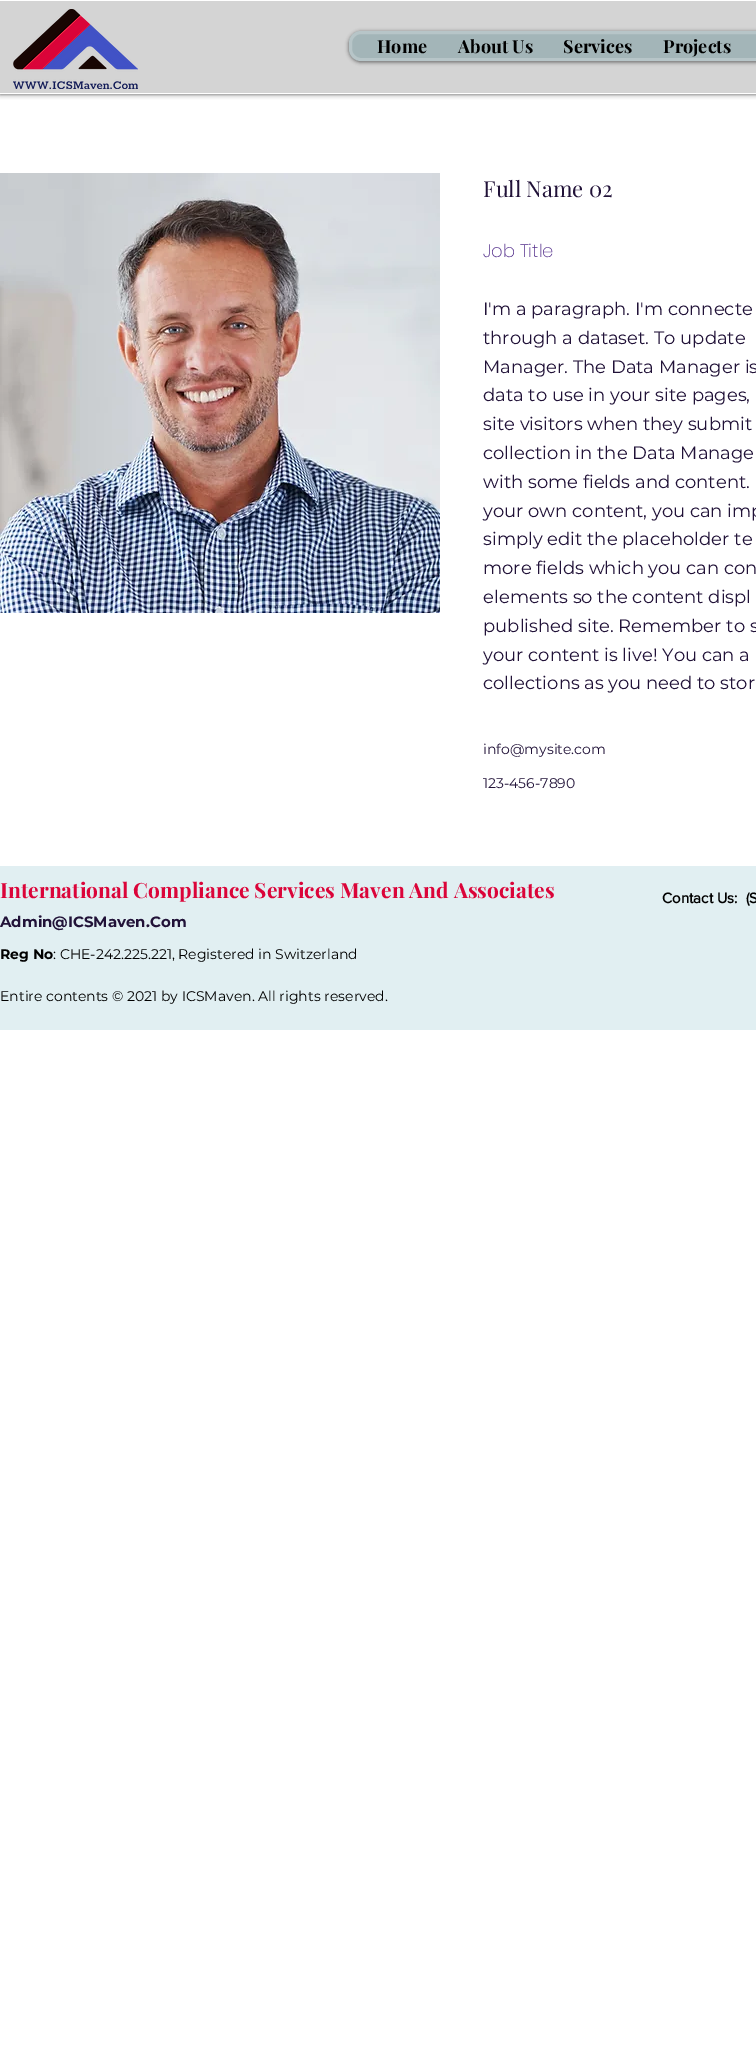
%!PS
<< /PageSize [756 2066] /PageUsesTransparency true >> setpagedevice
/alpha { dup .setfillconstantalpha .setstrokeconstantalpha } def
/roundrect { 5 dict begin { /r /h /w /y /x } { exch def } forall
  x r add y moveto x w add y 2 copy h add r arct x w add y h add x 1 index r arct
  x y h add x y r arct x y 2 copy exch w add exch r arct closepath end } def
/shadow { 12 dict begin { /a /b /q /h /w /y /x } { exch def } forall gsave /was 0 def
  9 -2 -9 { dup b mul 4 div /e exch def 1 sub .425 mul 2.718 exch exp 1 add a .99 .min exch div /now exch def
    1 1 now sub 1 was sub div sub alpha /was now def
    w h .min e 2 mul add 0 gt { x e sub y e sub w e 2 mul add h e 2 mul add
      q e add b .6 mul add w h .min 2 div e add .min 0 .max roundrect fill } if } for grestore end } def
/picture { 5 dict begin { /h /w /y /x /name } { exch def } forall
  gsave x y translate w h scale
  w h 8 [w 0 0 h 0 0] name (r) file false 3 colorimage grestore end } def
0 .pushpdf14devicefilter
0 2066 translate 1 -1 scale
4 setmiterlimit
1 setgray
0 0 756 2066 rectfill
0 setgray
0 0 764 94 0 2.5 0.7 shadow
1 setgray
0 0 756 94 rectfill
0.831 setgray
0 1 756 92 rectfill
(img1.rgb) 13 9 125 80 picture
0 setgray
349 32 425 30 12 2 0.6 shadow
0.639 0.71 0.722 setrgbcolor
349 31 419 30 12 roundrect fill
0.22 alpha
1 setgray
3 setlinewidth
350.5 32.5 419 27 10.5 roundrect stroke
/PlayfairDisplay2-Bold [18 0 0 -18 0 0] selectfont
1 alpha
0 setgray
377 53 moveto (Home) show
458 53 moveto (About Us) show
563 53 moveto (Services) show
663 53 moveto (Projects) show
(img2.rgb) 0 173 440 440 picture
/PlayfairDisplay-Regular [22 0 0 -22 0 0] selectfont
0.129 0.071 0.22 setrgbcolor
483 197 moveto (Full Name 02) show
/Poppins-ExtraLight [18 0 0 -18 0 0] selectfont
0.322 0.176 0.541 setrgbcolor
483 257 moveto (Job Title) show
/Montserrat-Regular [18 0 0 -18 0 0] selectfont
0.129 0.071 0.22 setrgbcolor
483 315 moveto (I'm a paragraph. I'm connecte) show
483 344 moveto (through a dataset. To update) show
483 373 moveto (Manager. The Data Manager is) show
483 401 moveto (data to use in your site pages,) show
483 430 moveto (site visitors when they submit) show
483 459 moveto (collection in the Data Manage) show
483 488 moveto (with some fields and content.) show
483 517 moveto (your own content, you can imp) show
483 545 moveto (simply edit the placeholder te) show
483 574 moveto (more fields which you can con) show
483 603 moveto (elements so the content displ) show
483 632 moveto (published site. Remember to s) show
483 661 moveto (your content is live! You can a) show
483 689 moveto (collections as you need to stor) show
/Montserrat-Regular [14 0 0 -14 0 0] selectfont
483 754 moveto (info@mysite.com) show
483 788 moveto (123-456-7890) show
0.882 0.937 0.949 setrgbcolor
0 866 756 164 rectfill
/PlayfairDisplay-Bold [21 0 0 -21 0 0] selectfont
0.859 0.016 0.224 setrgbcolor
0 898 moveto (International Compliance Services Maven And Associates) show
/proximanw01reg-Bold [15 0 0 -15 0 0] selectfont
0 setgray
662 903 moveto (Contact Us:  \(S) show
/Montserrat-Bold [15 0 0 -15 0 0] selectfont
0.129 0.071 0.22 setrgbcolor
0 927 moveto (Admin@ICSMaven.Com) show
/Montserrat-Bold [14 0 0 -14 0 0] selectfont
0 setgray
0 959 moveto (Reg No) show
/Montserrat-Regular [14 0 0 -14 0 0] selectfont
53 959 moveto (: CHE-242.225.221, Registered in Switzerland) show
0 1001 moveto (Entire contents © 2021 by ICSMaven. All rights reserved.) show
.poppdf14devicefilter showpage
